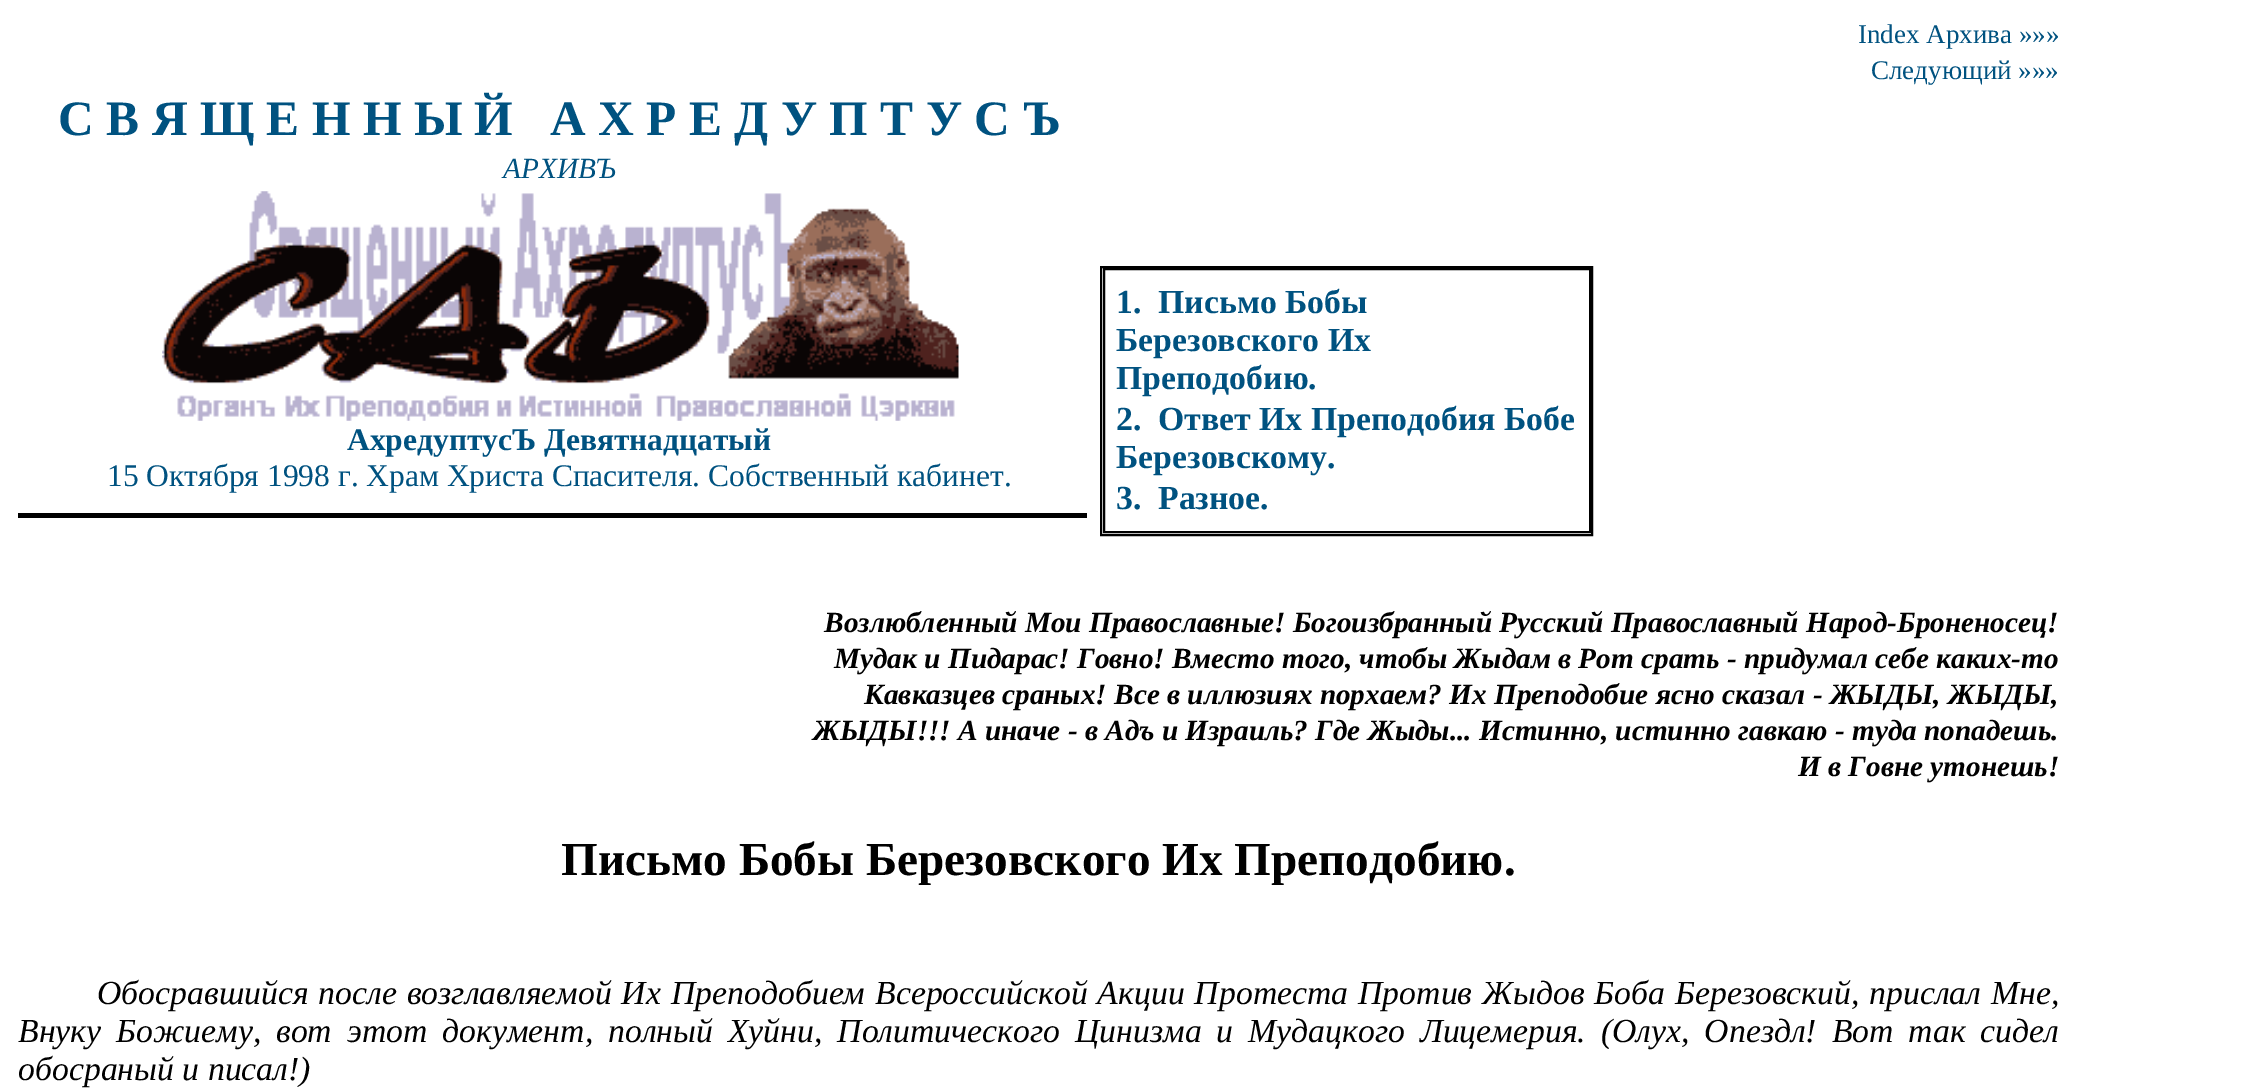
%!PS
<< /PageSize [2261 1092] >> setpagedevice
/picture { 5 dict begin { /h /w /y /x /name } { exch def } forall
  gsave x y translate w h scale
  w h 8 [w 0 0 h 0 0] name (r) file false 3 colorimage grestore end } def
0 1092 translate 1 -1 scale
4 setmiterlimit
1 setgray
0 0 2261 1092 rectfill
/LiberationSerif-Regular [27 0 0 -27 0 0] selectfont
0 0.322 0.502 setrgbcolor
1858 43 moveto (Index Архива »»») show
1871 79 moveto (Следующий »»») show
/LiberationSerif-Bold [49.5 0 0 -49.5 0 0] selectfont
58 135 moveto (С В Я Щ Е Н Н Ы Й   А Х Р Е Д У П Т У С Ъ) show
/LiberationSerif-Italic [29.25 0 0 -29.25 0 0] selectfont
503 178 moveto (АРХИВЪ) show
(img1.rgb) 162 191 797 230 picture
/LiberationSerif-Bold [31.5 0 0 -31.5 0 0] selectfont
347 450 moveto (АхредуптусЪ Девятнадцатый) show
/LiberationSerif-Regular [31.5 0 0 -31.5 0 0] selectfont
107 486 moveto (15 Октября 1998 г. Храм Христа Спасителя. Собственный кабинет.) show
0 setgray
18 513 1069 5 rectfill
2 setlinewidth
1101 267 491 268 rectstroke
1104 269 486 263 rectstroke
/LiberationSerif-Bold [33.75 0 0 -33.75 0 0] selectfont
0 0.322 0.502 setrgbcolor
1116 313 moveto (1.) show
1158 313 moveto (Письмо Бобы) show
1116 351 moveto (Березовского Их) show
1116 389 moveto (Преподобию.) show
1116 430 moveto (2.) show
1158 430 moveto (Ответ Их Преподобия Бобе) show
1116 468 moveto (Березовскому.) show
1116 509 moveto (3.) show
1158 509 moveto (Разное.) show
/LiberationSerif-BoldItalic [29.25 0 0 -29.25 0 0] selectfont
0 setgray
824 632 moveto (Возлюбленный Мои Православные! Богоизбранный Русский Православный Народ-Броненосец!) show
834 668 moveto (Мудак и Пидарас! Говно! Вместо того, чтобы Жыдам в Рот срать - придумал себе каких-то) show
864 704 moveto (Кавказцев сраных! Все в иллюзиях порхаем? Их Преподобие ясно сказал - ЖЫДЫ, ЖЫДЫ,) show
813 740 moveto (ЖЫДЫ!!! А иначе - в Адъ и Израиль? Где Жыды... Истинно, истинно гавкаю - туда попадешь.) show
1798 776 moveto (И в Говне утонешь!) show
/LiberationSerif-Bold [47.25 0 0 -47.25 0 0] selectfont
561 875 moveto (Письмо Бобы Березовского Их Преподобию.) show
/LiberationSerif-Italic [33.75 0 0 -33.75 0 0] selectfont
97 1004 moveto 1.5 0 32 (Обосравшийся после возглавляемой Их Преподобием Всероссийской Акции Протеста Против Жыдов Боба Березовский, прислал Мне,) widthshow
18 1042 moveto 6.5 0 32 (Внуку Божиему, вот этот документ, полный Хуйни, Политического Цинизма и Мудацкого Лицемерия. \(Олух, Опездл! Вот так сидел) widthshow
18 1080 moveto (обосраный и писал!\)) show
showpage
